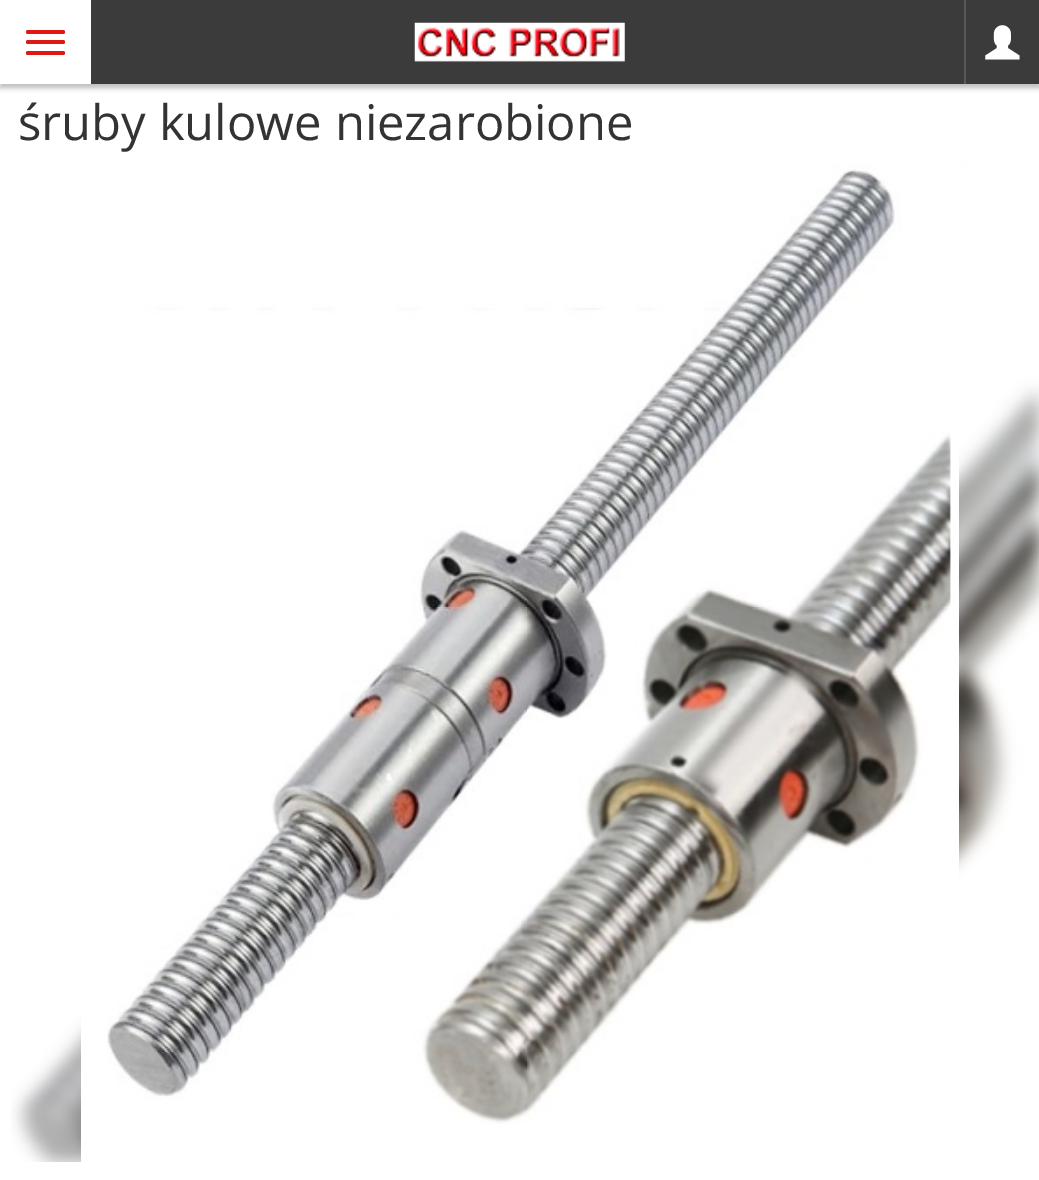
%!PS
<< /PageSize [1039 1180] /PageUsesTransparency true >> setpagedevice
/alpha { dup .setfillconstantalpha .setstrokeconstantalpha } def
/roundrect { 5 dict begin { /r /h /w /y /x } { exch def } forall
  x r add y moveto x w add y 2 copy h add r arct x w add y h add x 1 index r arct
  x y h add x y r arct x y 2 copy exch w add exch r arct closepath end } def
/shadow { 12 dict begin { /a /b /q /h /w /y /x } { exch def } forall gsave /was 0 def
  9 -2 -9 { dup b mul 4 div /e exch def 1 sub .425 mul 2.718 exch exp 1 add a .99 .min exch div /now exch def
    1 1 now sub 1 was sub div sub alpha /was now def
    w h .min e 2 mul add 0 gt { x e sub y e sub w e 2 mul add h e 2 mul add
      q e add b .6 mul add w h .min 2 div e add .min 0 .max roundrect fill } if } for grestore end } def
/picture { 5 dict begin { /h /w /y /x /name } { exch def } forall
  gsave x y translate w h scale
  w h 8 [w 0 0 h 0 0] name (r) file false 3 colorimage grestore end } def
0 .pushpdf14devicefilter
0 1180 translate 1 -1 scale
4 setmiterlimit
1 setgray
0 0 1039 1180 rectfill
0 setgray
0 4 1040 84 0 2.5 0.25 shadow
0.231 setgray
91 0 948 84 rectfill
1 setgray
0 0 91 84 rectfill
0.863 0.098 0.071 setrgbcolor
26 30 39 4 2 roundrect fill
26 40 39 4 2 roundrect fill
26 51 39 4 2 roundrect fill
(img1.rgb) 414 22 211 40 picture
0.349 setgray
964 0 2 84 rectfill
(img2.rgb) 985 25 35 35 picture
/OpenSans-Regular [49 0 0 -49 0 0] selectfont
0.2 setgray
18 140 moveto (śruby kulowe niezarobione) show
(img3.rgb) 11 161 1028 1001 picture
1 setgray
81 161 878 1001 rectfill
(img4.rgb) 107 163 844 961 picture
.poppdf14devicefilter showpage
